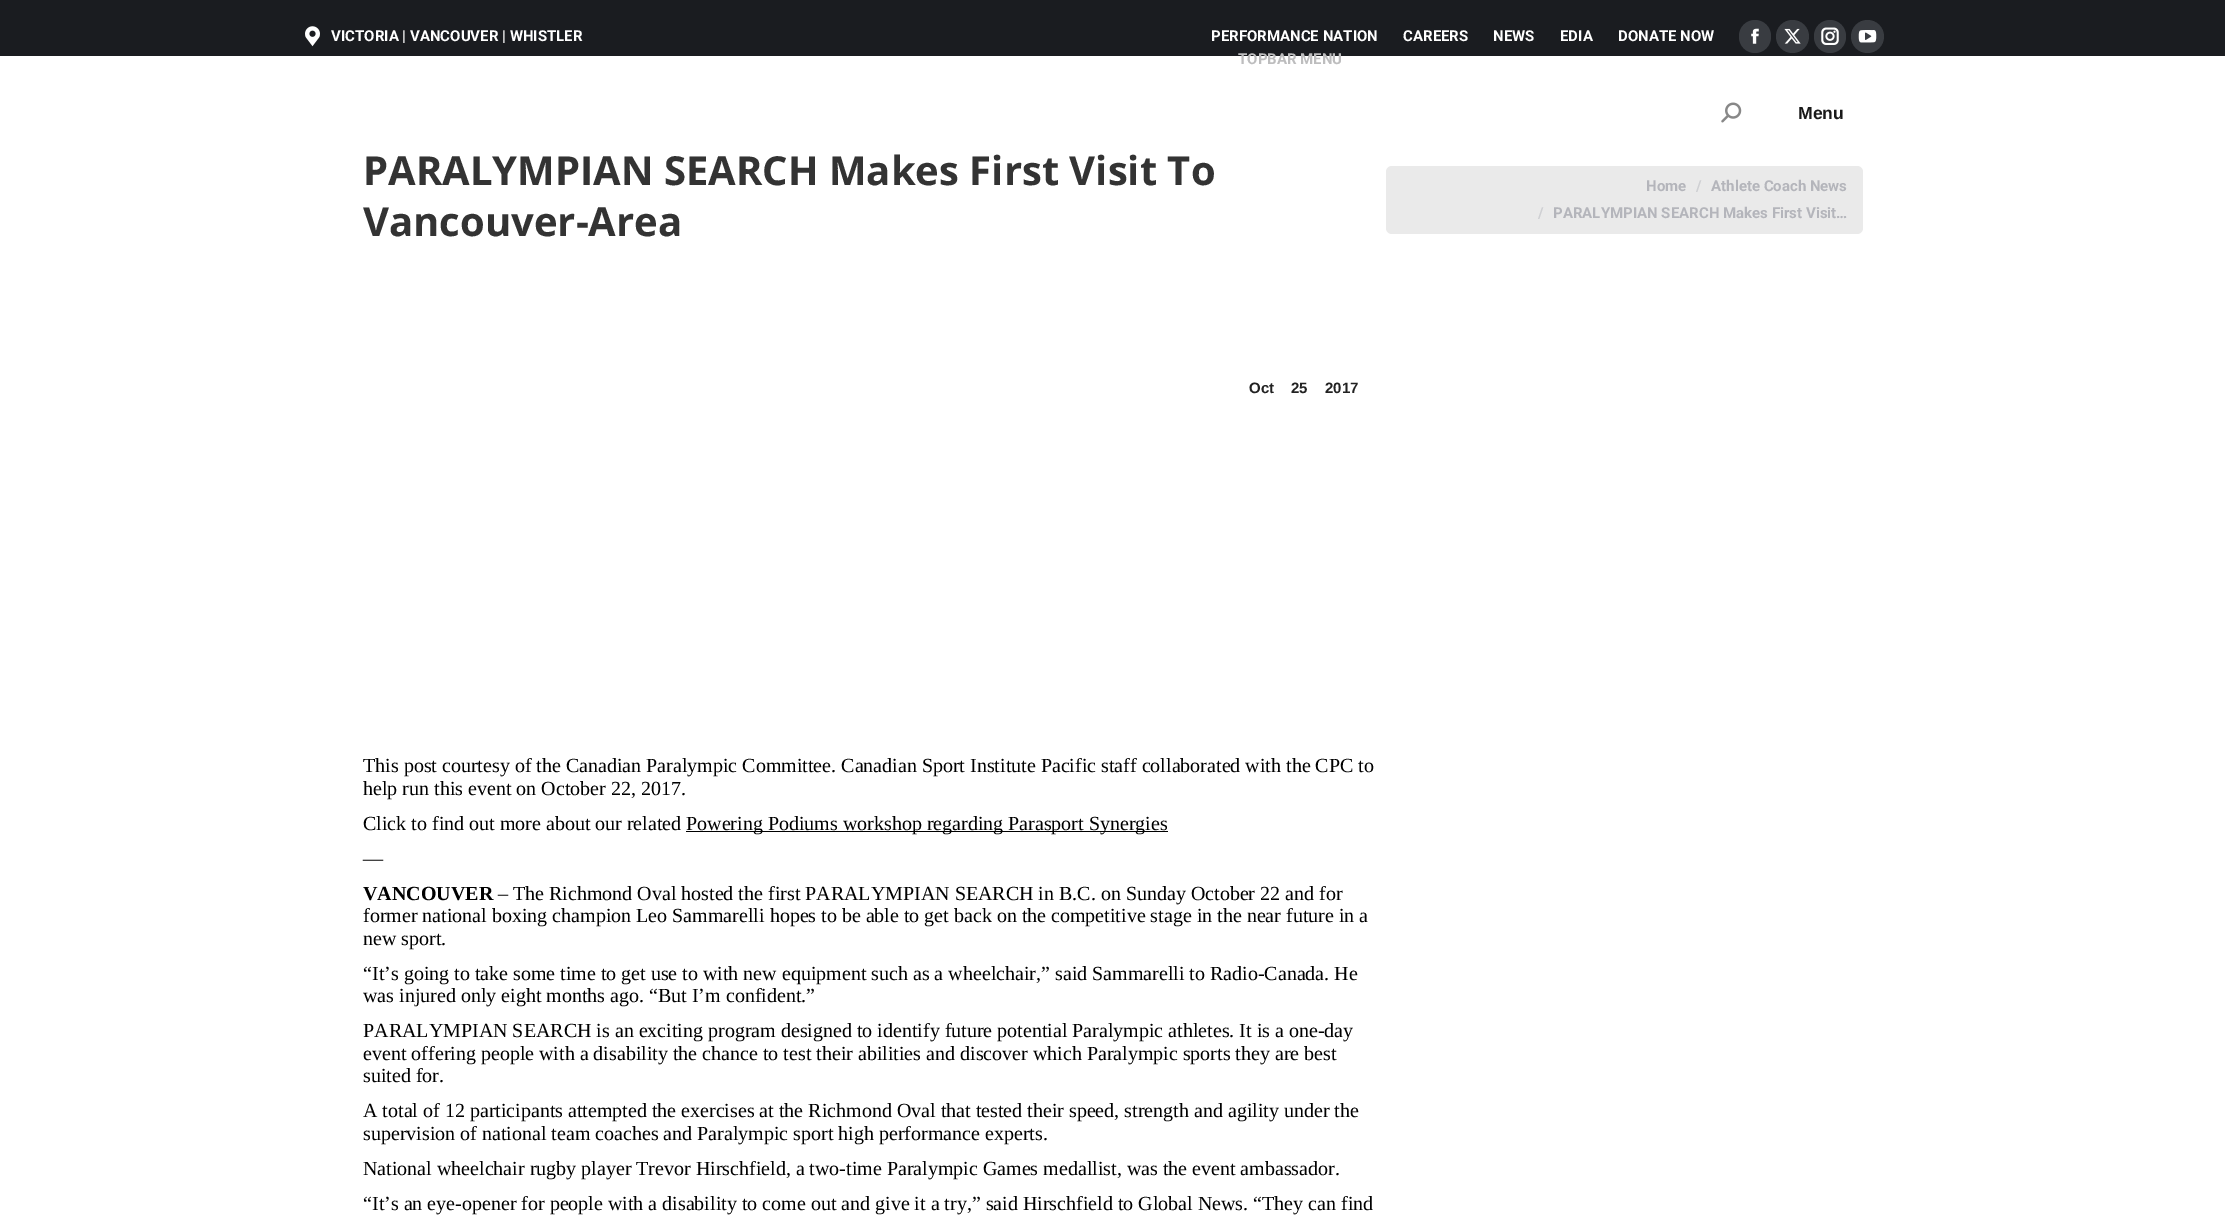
%!PS
<< /PageSize [2225 1217] >> setpagedevice
/roundrect { 5 dict begin { /r /h /w /y /x } { exch def } forall
  x r add y moveto x w add y 2 copy h add r arct x w add y h add x 1 index r arct
  x y h add x y r arct x y 2 copy exch w add exch r arct closepath end } def
/picture { 5 dict begin { /h /w /y /x /name } { exch def } forall
  gsave x y translate w h scale
  w h 8 [w 0 0 h 0 0] name (r) file false 3 colorimage grestore end } def
0 1217 translate 1 -1 scale
4 setmiterlimit
1 setgray
0 0 2225 1217 rectfill
0.102 0.11 0.125 setrgbcolor
0 0 2225 56 rectfill
(img1.rgb) 305 26 15 21 picture
/Roboto-Bold [15 0 0 -15 0 0] selectfont
1 setgray
331 41 moveto (VICTORIA | VANCOUVER | WHISTLER) show
1211 41 moveto (PERFORMANCE NATION) show
1403 41 moveto (CAREERS) show
1493 41 moveto (NEWS) show
1560 41 moveto (EDIA) show
1618 41 moveto (DONATE NOW) show
0.741 0.741 0.745 setrgbcolor
1238 64 moveto (TOPBAR MENU) show
0.224 0.235 0.255 setrgbcolor
1739 20 32 33 16 roundrect fill
(img2.rgb) 1751 28 8 16 picture
newpath 1792.5 36.5 16.5 0 360 arc closepath fill
(img3.rgb) 1784 28 17 16 picture
1814 20 32 33 16 roundrect fill
(img4.rgb) 1821 27 18 18 picture
newpath 1867.5 36.5 16.5 0 360 arc closepath fill
(img5.rgb) 1858 30 19 13 picture
(img6.rgb) 1721 102 21 21 picture
/LiberationSans-Bold [17.5 0 0 -17.5 0 0] selectfont
0.098 setgray
1798 119 moveto (Menu) show
/OpenSans-Bold [40 0 0 -40 0 0] selectfont
0.2 setgray
363 185 moveto (PARALYMPIAN SEARCH Makes First Visit To) show
363 236 moveto (Vancouver-Area) show
0.918 setgray
1386 166 477 68 6 roundrect fill
/Roboto-Bold [15 0 0 -15 0 0] selectfont
0.706 0.71 0.733 setrgbcolor
1646 191 moveto (Home) show
0.812 0.816 0.827 setrgbcolor
1696 191 moveto (/) show
0.706 0.71 0.733 setrgbcolor
1711 191 moveto (Athlete Coach News) show
0.812 0.816 0.827 setrgbcolor
1538 218 moveto (/) show
0.706 0.71 0.733 setrgbcolor
1553 218 moveto (PARALYMPIAN SEARCH Makes First Visit…) show
/LiberationSans-Bold [15 0 0 -15 0 0] selectfont
0.133 setgray
1249 393 moveto (Oct) show
1291 393 moveto (25) show
1325 393 moveto (2017) show
/LiberationSerif-Regular [20 0 0 -20 0 0] selectfont
0 setgray
363 772 moveto (This post courtesy of the Canadian Paralympic Committee. Canadian Sport Institute Pacific staff collaborated with the CPC to) show
363 795 moveto (help run this event on October 22, 2017.) show
363 830 moveto (Click to find out more about our related) show
686 831 482 1 rectfill
686 830 moveto (Powering Podiums workshop regarding Parasport Synergies) show
363 865 moveto (—) show
/LiberationSerif-Bold [20 0 0 -20 0 0] selectfont
363 900 moveto (VANCOUVER) show
/LiberationSerif-Regular [20 0 0 -20 0 0] selectfont
498 900 moveto (– The Richmond Oval hosted the first PARALYMPIAN SEARCH in B.C. on Sunday October 22 and for) show
363 922 moveto (former national boxing champion Leo Sammarelli hopes to be able to get back on the competitive stage in the near future in a) show
363 945 moveto (new sport.) show
363 980 moveto (“It’s going to take some time to get use to with new equipment such as a wheelchair,” said Sammarelli to Radio-Canada. He) show
363 1002 moveto (was injured only eight months ago. “But I’m confident.”) show
363 1037 moveto (PARALYMPIAN SEARCH is an exciting program designed to identify future potential Paralympic athletes. It is a one-day) show
363 1060 moveto (event offering people with a disability the chance to test their abilities and discover which Paralympic sports they are best) show
363 1082 moveto (suited for.) show
363 1117 moveto (A total of 12 participants attempted the exercises at the Richmond Oval that tested their speed, strength and agility under the) show
363 1140 moveto (supervision of national team coaches and Paralympic sport high performance experts.) show
363 1175 moveto (National wheelchair rugby player Trevor Hirschfield, a two-time Paralympic Games medallist, was the event ambassador.) show
363 1210 moveto (“It’s an eye-opener for people with a disability to come out and give it a try,” said Hirschfield to Global News. “They can find) show
showpage
